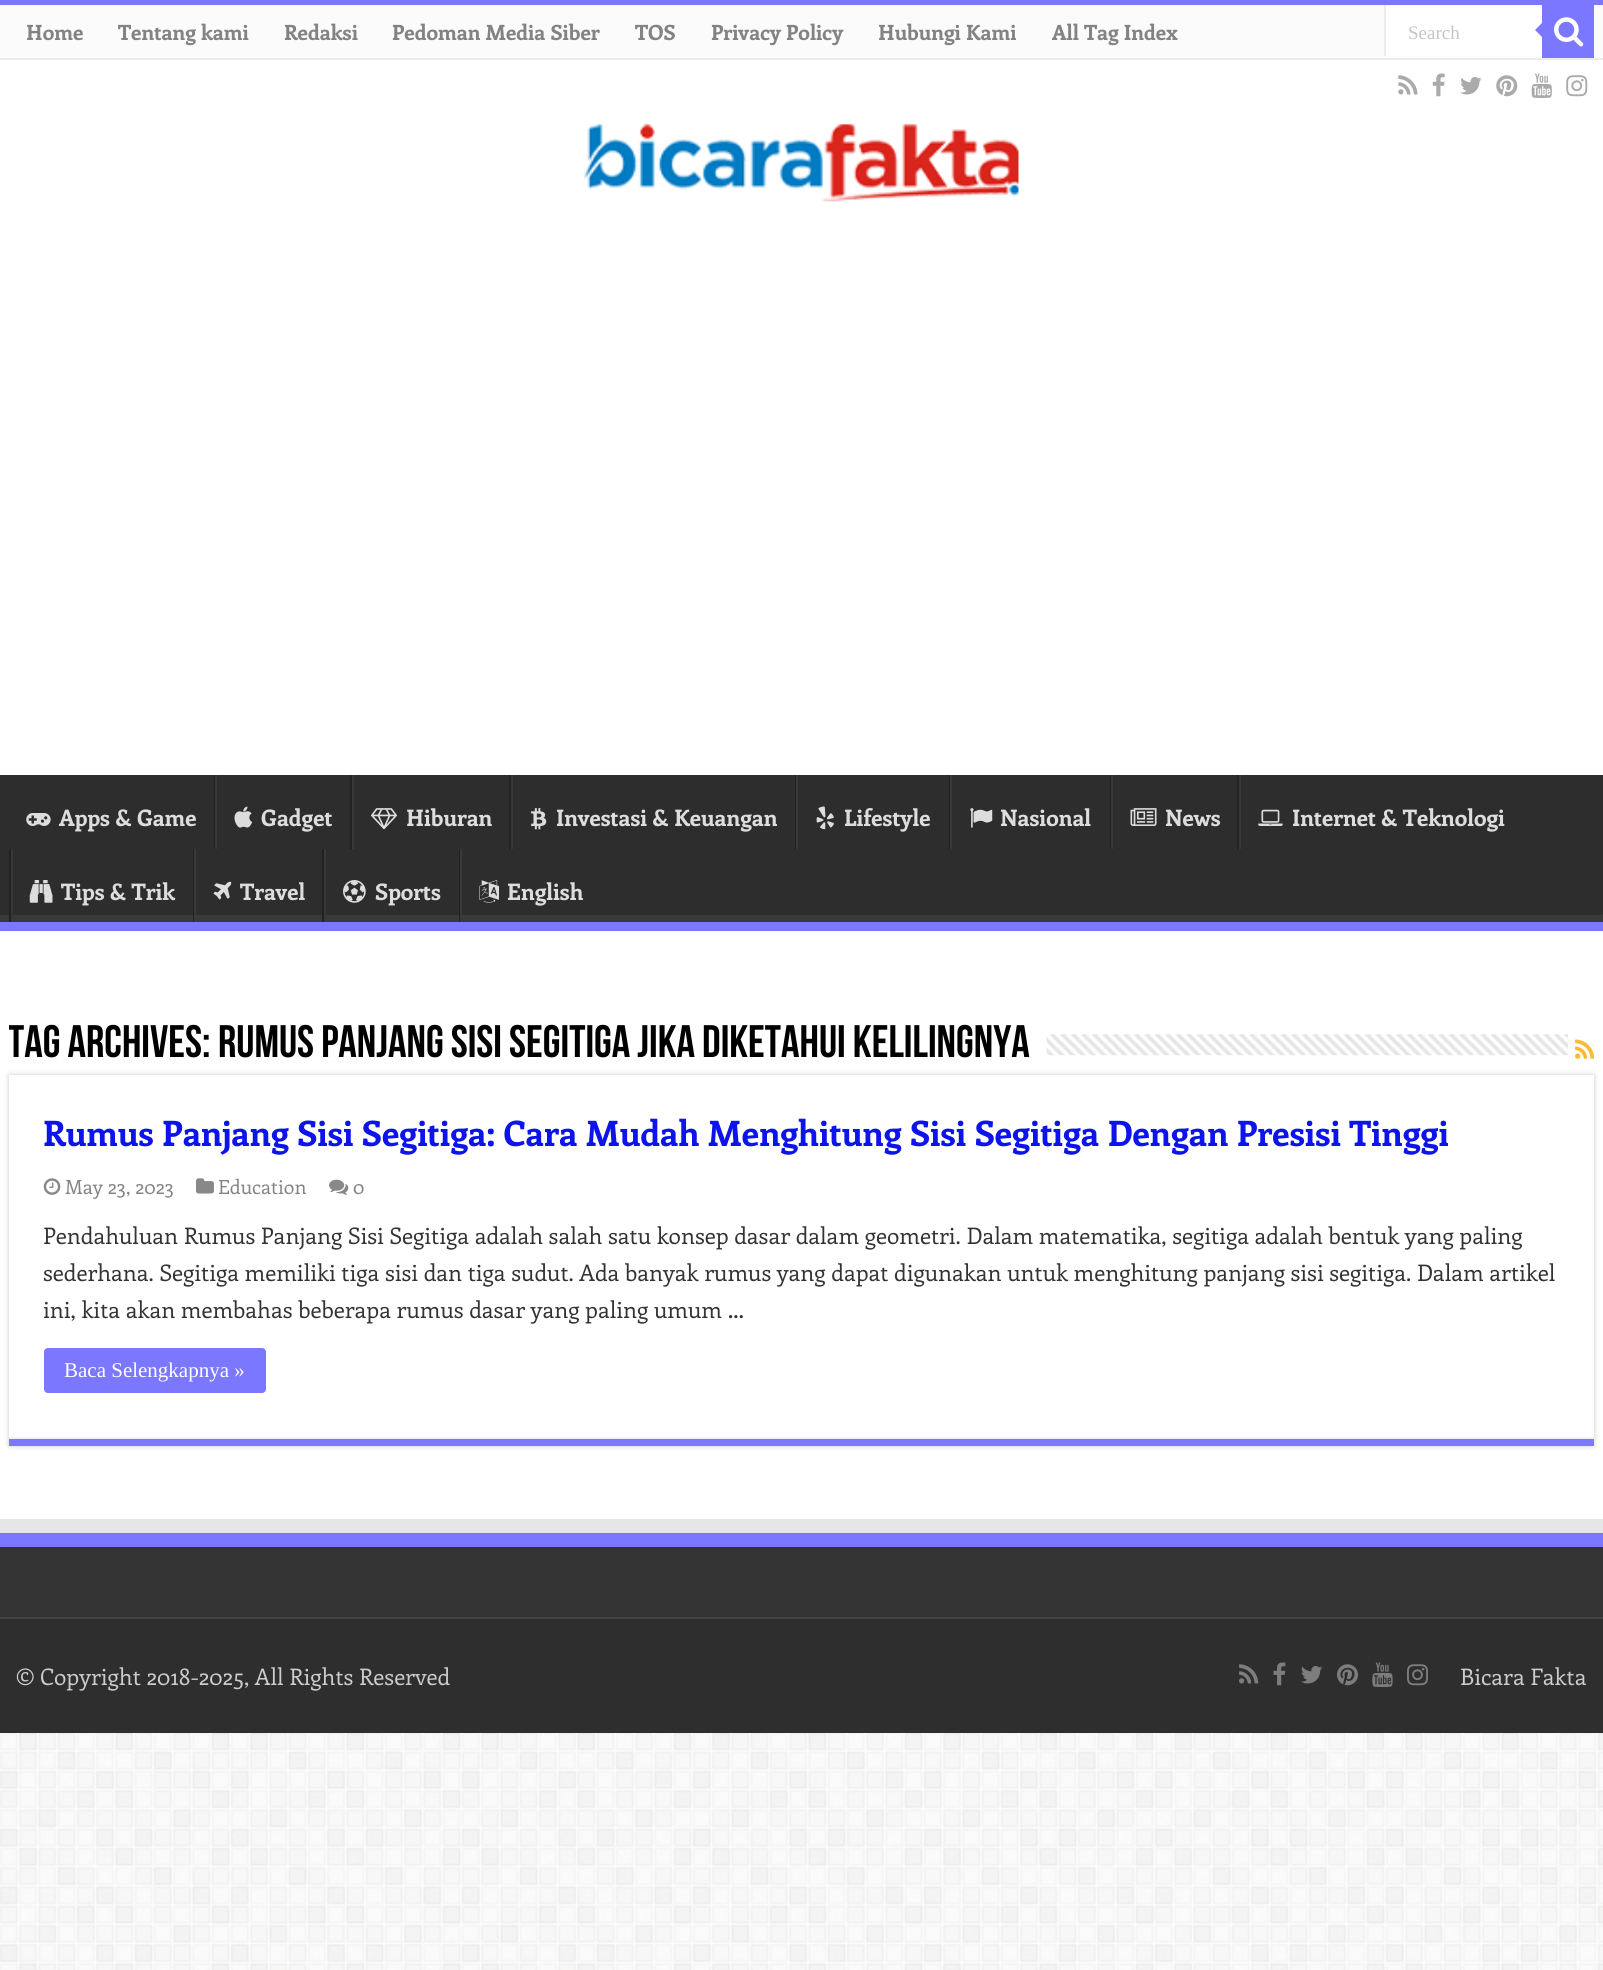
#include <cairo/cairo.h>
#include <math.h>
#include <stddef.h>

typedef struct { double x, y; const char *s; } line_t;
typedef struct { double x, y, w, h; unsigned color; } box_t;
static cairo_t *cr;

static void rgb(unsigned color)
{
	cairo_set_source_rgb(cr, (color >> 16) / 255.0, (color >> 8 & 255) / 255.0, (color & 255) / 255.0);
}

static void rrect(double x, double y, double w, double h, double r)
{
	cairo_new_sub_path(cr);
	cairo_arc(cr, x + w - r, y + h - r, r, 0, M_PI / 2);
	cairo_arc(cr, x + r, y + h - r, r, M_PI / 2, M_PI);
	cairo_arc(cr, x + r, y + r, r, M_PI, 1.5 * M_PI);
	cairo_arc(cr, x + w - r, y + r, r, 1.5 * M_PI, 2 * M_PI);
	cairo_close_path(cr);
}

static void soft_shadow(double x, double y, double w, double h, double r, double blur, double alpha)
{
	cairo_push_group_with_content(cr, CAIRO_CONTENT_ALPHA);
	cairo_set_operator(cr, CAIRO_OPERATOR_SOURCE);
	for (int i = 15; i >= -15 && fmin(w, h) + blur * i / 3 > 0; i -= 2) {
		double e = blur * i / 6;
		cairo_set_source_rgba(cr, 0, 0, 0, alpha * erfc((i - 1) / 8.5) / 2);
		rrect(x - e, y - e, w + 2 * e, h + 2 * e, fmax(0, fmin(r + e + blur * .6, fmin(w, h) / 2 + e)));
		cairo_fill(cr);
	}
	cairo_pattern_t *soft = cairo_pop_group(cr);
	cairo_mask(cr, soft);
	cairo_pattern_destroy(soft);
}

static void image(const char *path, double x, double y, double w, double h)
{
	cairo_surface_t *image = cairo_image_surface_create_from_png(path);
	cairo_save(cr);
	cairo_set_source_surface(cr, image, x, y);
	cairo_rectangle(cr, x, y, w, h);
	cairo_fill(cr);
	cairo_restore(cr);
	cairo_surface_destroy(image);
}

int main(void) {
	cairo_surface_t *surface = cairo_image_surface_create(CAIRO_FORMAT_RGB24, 1603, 1970);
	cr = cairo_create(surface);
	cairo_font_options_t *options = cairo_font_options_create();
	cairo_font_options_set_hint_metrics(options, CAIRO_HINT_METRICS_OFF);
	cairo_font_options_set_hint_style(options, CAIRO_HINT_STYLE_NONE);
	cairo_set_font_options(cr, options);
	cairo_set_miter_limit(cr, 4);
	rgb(0xffffff);
	cairo_paint(cr);
	image("img/1.png", 0, 1733, 1603, 237);
	{
		static const box_t items[] = {
			{0, 0, 1603, 5, 0x7b77ff},
			{0, 5, 1603, 53, 0xfbfbfb},
			{0, 58, 1603, 2, 0xececec},
			{1386, 5, 156, 51, 0xffffff},
			{1384, 5, 2, 51, 0xececec},
			{1542, 5, 52, 53, 0x7b77ff},
		};
		for (size_t i = 0; i < sizeof items / sizeof *items; i++) {
			rgb(items[i].color);
			cairo_rectangle(cr, items[i].x, items[i].y, items[i].w, items[i].h);
			cairo_fill(cr);
		}
	}
	image("img/2.png", 1554, 17, 30, 30);
	cairo_new_path(cr);
	cairo_move_to(cr, 1542, 23);
	cairo_line_to(cr, 1542, 37);
	cairo_line_to(cr, 1535, 30);
	cairo_close_path(cr);
	cairo_fill(cr);
	image("img/3.png", 1398, 75, 20, 20);
	image("img/4.png", 1432, 73, 13, 24);
	image("img/5.png", 1460, 77, 22, 18);
	image("img/6.png", 1496, 75, 22, 22);
	image("img/7.png", 1531, 73, 21, 25);
	image("img/8.png", 1566, 75, 22, 22);
	image("img/9.png", 584, 123, 435, 79);
	rgb(0x2d2d2d);
	cairo_rectangle(cr, 0, 775, 1603, 140);
	cairo_fill(cr);
	cairo_save(cr);
	cairo_rectangle(cr, 0, 775, 1603, 147);
	cairo_clip(cr);
	rgb(0x393939);
	cairo_set_fill_rule(cr, CAIRO_FILL_RULE_EVEN_ODD);
	cairo_new_path(cr);
	cairo_move_to(cr, -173, 602);
	cairo_line_to(cr, 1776, 602);
	cairo_line_to(cr, 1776, 1096);
	cairo_line_to(cr, -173, 1096);
	cairo_close_path(cr);
	cairo_move_to(cr, -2, 765);
	cairo_line_to(cr, 1601, 765);
	cairo_curve_to(cr, 1602, 765, 1603, 766, 1603, 766);
	cairo_line_to(cr, 1603, 914);
	cairo_curve_to(cr, 1603, 914, 1602, 915, 1601, 915);
	cairo_line_to(cr, -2, 915);
	cairo_curve_to(cr, -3, 915, -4, 914, -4, 914);
	cairo_line_to(cr, -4, 766);
	cairo_curve_to(cr, -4, 766, -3, 765, -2, 765);
	cairo_close_path(cr);
	cairo_fill(cr);
	cairo_restore(cr);
	rgb(0x7b77ff);
	cairo_rectangle(cr, 0, 922, 1603, 9);
	cairo_fill(cr);
	image("img/10.png", 26, 813, 25, 13);
	rgb(0x222222);
	cairo_rectangle(cr, 214, 775, 1, 74);
	cairo_fill(cr);
	rgb(0x383838);
	cairo_rectangle(cr, 215, 775, 2, 74);
	cairo_fill(cr);
	image("img/11.png", 234, 806, 19, 22);
	rgb(0x222222);
	cairo_rectangle(cr, 350, 775, 2, 74);
	cairo_fill(cr);
	rgb(0x383838);
	cairo_rectangle(cr, 352, 775, 2, 74);
	cairo_fill(cr);
	image("img/12.png", 371, 808, 26, 22);
	rgb(0x222222);
	cairo_rectangle(cr, 509, 775, 2, 74);
	cairo_fill(cr);
	rgb(0x383838);
	cairo_rectangle(cr, 511, 775, 2, 74);
	cairo_fill(cr);
	image("img/13.png", 530, 808, 17, 22);
	rgb(0x222222);
	cairo_rectangle(cr, 795, 775, 1, 74);
	cairo_fill(cr);
	rgb(0x383838);
	cairo_rectangle(cr, 796, 775, 2, 74);
	cairo_fill(cr);
	image("img/14.png", 816, 806, 18, 24);
	rgb(0x222222);
	cairo_rectangle(cr, 949, 775, 1, 74);
	cairo_fill(cr);
	rgb(0x383838);
	cairo_rectangle(cr, 950, 775, 2, 74);
	cairo_fill(cr);
	image("img/15.png", 970, 808, 23, 20);
	rgb(0x222222);
	cairo_rectangle(cr, 1110, 775, 1, 74);
	cairo_fill(cr);
	rgb(0x383838);
	cairo_rectangle(cr, 1111, 775, 2, 74);
	cairo_fill(cr);
	image("img/16.png", 1130, 808, 27, 18);
	rgb(0x222222);
	cairo_rectangle(cr, 1237, 775, 2, 74);
	cairo_fill(cr);
	rgb(0x383838);
	cairo_rectangle(cr, 1239, 775, 2, 74);
	cairo_fill(cr);
	image("img/17.png", 1258, 809, 25, 17);
	rgb(0x222222);
	cairo_rectangle(cr, 9, 849, 2, 73);
	cairo_fill(cr);
	rgb(0x383838);
	cairo_rectangle(cr, 11, 849, 2, 73);
	cairo_fill(cr);
	image("img/18.png", 29, 880, 24, 23);
	rgb(0x222222);
	cairo_rectangle(cr, 193, 849, 1, 73);
	cairo_fill(cr);
	rgb(0x383838);
	cairo_rectangle(cr, 194, 849, 2, 73);
	cairo_fill(cr);
	image("img/19.png", 213, 881, 19, 19);
	rgb(0x222222);
	cairo_rectangle(cr, 322, 849, 2, 73);
	cairo_fill(cr);
	rgb(0x383838);
	cairo_rectangle(cr, 324, 849, 2, 73);
	cairo_fill(cr);
	image("img/20.png", 343, 880, 23, 23);
	rgb(0x222222);
	cairo_rectangle(cr, 459, 849, 1, 73);
	cairo_fill(cr);
	rgb(0x383838);
	cairo_rectangle(cr, 460, 849, 2, 73);
	cairo_fill(cr);
	image("img/21.png", 479, 880, 20, 23);
	image("img/22.png", 1046, 1034, 522, 22);
	image("img/23.png", 1575, 1039, 19, 20);
	rgb(0xcacaca);
	soft_shadow(9, 1075, 1585, 371, 0, 2.5, 1);
	{
		static const box_t items[] = {
			{9, 1075, 1585, 362, 0xffffff},
			{9, 1439, 1585, 7, 0x7b77ff},
			{9, 1437, 1585, 2, 0xf2f2f2},
		};
		for (size_t i = 0; i < sizeof items / sizeof *items; i++) {
			rgb(items[i].color);
			cairo_rectangle(cr, items[i].x, items[i].y, items[i].w, items[i].h);
			cairo_fill(cr);
		}
	}
	image("img/24.png", 43, 1178, 18, 17);
	image("img/25.png", 196, 1178, 18, 16);
	image("img/26.png", 329, 1179, 20, 16);
	rgb(0x7b77ff);
	rrect(44, 1348, 222, 45, 4);
	cairo_fill(cr);
	{
		static const box_t items[] = {
			{0, 1519, 1603, 14, 0xe6e6e6},
			{0, 1547, 1603, 70, 0x333333},
			{0, 1533, 1603, 14, 0x7b77ff},
			{0, 1619, 1603, 114, 0x2e2e2e},
			{0, 1617, 1603, 2, 0x444444},
		};
		for (size_t i = 0; i < sizeof items / sizeof *items; i++) {
			rgb(items[i].color);
			cairo_rectangle(cr, items[i].x, items[i].y, items[i].w, items[i].h);
			cairo_fill(cr);
		}
	}
	image("img/27.png", 1239, 1664, 20, 20);
	image("img/28.png", 1273, 1662, 13, 24);
	image("img/29.png", 1301, 1666, 22, 18);
	image("img/30.png", 1337, 1664, 21, 22);
	image("img/31.png", 1372, 1662, 21, 25);
	image("img/32.png", 1407, 1664, 21, 22);
	cairo_select_font_face(cr, "Enriqueta", CAIRO_FONT_SLANT_NORMAL, CAIRO_FONT_WEIGHT_BOLD);
	cairo_set_font_size(cr, 21);
	rgb(0x838383);
	{
		static const line_t items[] = {
			{26, 40, "Home"},
			{118, 40, "Tentang kami"},
			{284, 40, "Redaksi"},
			{392, 40, "Pedoman Media Siber"},
			{635, 40, "TOS"},
			{711, 40, "Privacy Policy"},
			{878, 40, "Hubungi Kami"},
			{1052, 40, "All Tag Index"},
		};
		for (size_t i = 0; i < sizeof items / sizeof *items; i++) {
			cairo_move_to(cr, items[i].x, items[i].y);
			cairo_show_text(cr, items[i].s);
		}
	}
	cairo_select_font_face(cr, "Liberation Serif", CAIRO_FONT_SLANT_NORMAL, CAIRO_FONT_WEIGHT_NORMAL);
	cairo_set_font_size(cr, 19);
	rgb(0xc5c5c5);
	cairo_move_to(cr, 1408, 39);
	cairo_show_text(cr, "Search");
	cairo_select_font_face(cr, "Enriqueta", CAIRO_FONT_SLANT_NORMAL, CAIRO_FONT_WEIGHT_BOLD);
	cairo_set_font_size(cr, 22.75);
	rgb(0xdddddd);
	{
		static const line_t items[] = {
			{59, 826, "Apps & Game"},
			{261, 826, "Gadget"},
			{406, 826, "Hiburan"},
			{556, 826, "Investasi & Keuangan"},
			{844, 826, "Lifestyle"},
			{1000, 826, "Nasional"},
			{1165, 826, "News"},
			{1292, 826, "Internet & Teknologi"},
			{61, 900, "Tips & Trik"},
			{240, 900, "Travel"},
			{375, 900, "Sports"},
			{507, 900, "English"},
		};
		for (size_t i = 0; i < sizeof items / sizeof *items; i++) {
			cairo_move_to(cr, items[i].x, items[i].y);
			cairo_show_text(cr, items[i].s);
		}
	}
	cairo_save(cr);
	cairo_rectangle(cr, 9, 1017, 1585, 58);
	cairo_clip(cr);
	cairo_select_font_face(cr, "Bebas Neue", CAIRO_FONT_SLANT_NORMAL, CAIRO_FONT_WEIGHT_BOLD);
	cairo_set_font_size(cr, 45.5);
	rgb(0x000000);
	cairo_move_to(cr, 8, 1057);
	cairo_show_text(cr, "Tag Archives:");
	cairo_restore(cr);
	cairo_select_font_face(cr, "Bebas Neue", CAIRO_FONT_SLANT_NORMAL, CAIRO_FONT_WEIGHT_BOLD);
	cairo_set_font_size(cr, 45.5);
	rgb(0x000000);
	cairo_move_to(cr, 218, 1057);
	cairo_show_text(cr, "rumus panjang sisi segitiga jika diketahui kelilingnya");
	cairo_select_font_face(cr, "Enriqueta", CAIRO_FONT_SLANT_NORMAL, CAIRO_FONT_WEIGHT_BOLD);
	cairo_set_font_size(cr, 35);
	rgb(0x0c13eb);
	cairo_move_to(cr, 43, 1146);
	cairo_show_text(cr, "Rumus Panjang Sisi Segitiga: Cara Mudah Menghitung Sisi Segitiga Dengan Presisi Tinggi");
	cairo_select_font_face(cr, "Enriqueta", CAIRO_FONT_SLANT_NORMAL, CAIRO_FONT_WEIGHT_NORMAL);
	cairo_set_font_size(cr, 19.5);
	rgb(0x838383);
	{
		static const line_t items[] = {
			{65, 1194, "May 23, 2023"},
			{218, 1194, "Education"},
			{353, 1194, "0"},
		};
		for (size_t i = 0; i < sizeof items / sizeof *items; i++) {
			cairo_move_to(cr, items[i].x, items[i].y);
			cairo_show_text(cr, items[i].s);
		}
	}
	cairo_set_font_size(cr, 22.75);
	rgb(0x333333);
	{
		static const line_t items[] = {
			{43, 1244, "Pendahuluan Rumus Panjang Sisi Segitiga adalah salah satu konsep dasar dalam geometri. Dalam matematika, segitiga adalah bentuk yang paling"},
			{43, 1281, "sederhana. Segitiga memiliki tiga sisi dan tiga sudut. Ada banyak rumus yang dapat digunakan untuk menghitung panjang sisi segitiga. Dalam artikel"},
			{43, 1318, "ini, kita akan membahas beberapa rumus dasar yang paling umum …"},
		};
		for (size_t i = 0; i < sizeof items / sizeof *items; i++) {
			cairo_move_to(cr, items[i].x, items[i].y);
			cairo_show_text(cr, items[i].s);
		}
	}
	cairo_select_font_face(cr, "Liberation Serif", CAIRO_FONT_SLANT_NORMAL, CAIRO_FONT_WEIGHT_NORMAL);
	cairo_set_font_size(cr, 21);
	rgb(0xffffff);
	cairo_move_to(cr, 64, 1377);
	cairo_show_text(cr, "Baca Selengkapnya »");
	cairo_select_font_face(cr, "Enriqueta", CAIRO_FONT_SLANT_NORMAL, CAIRO_FONT_WEIGHT_NORMAL);
	cairo_set_font_size(cr, 22.75);
	rgb(0xcccccc);
	cairo_move_to(cr, 16, 1685);
	cairo_show_text(cr, "© Copyright 2018-2025, All Rights Reserved");
	cairo_move_to(cr, 1460, 1685);
	cairo_show_text(cr, "Bicara Fakta");
	cairo_surface_write_to_png(surface, "page.png");
	cairo_font_options_destroy(options);
	cairo_destroy(cr);
	cairo_surface_destroy(surface);
	return 0;
}
